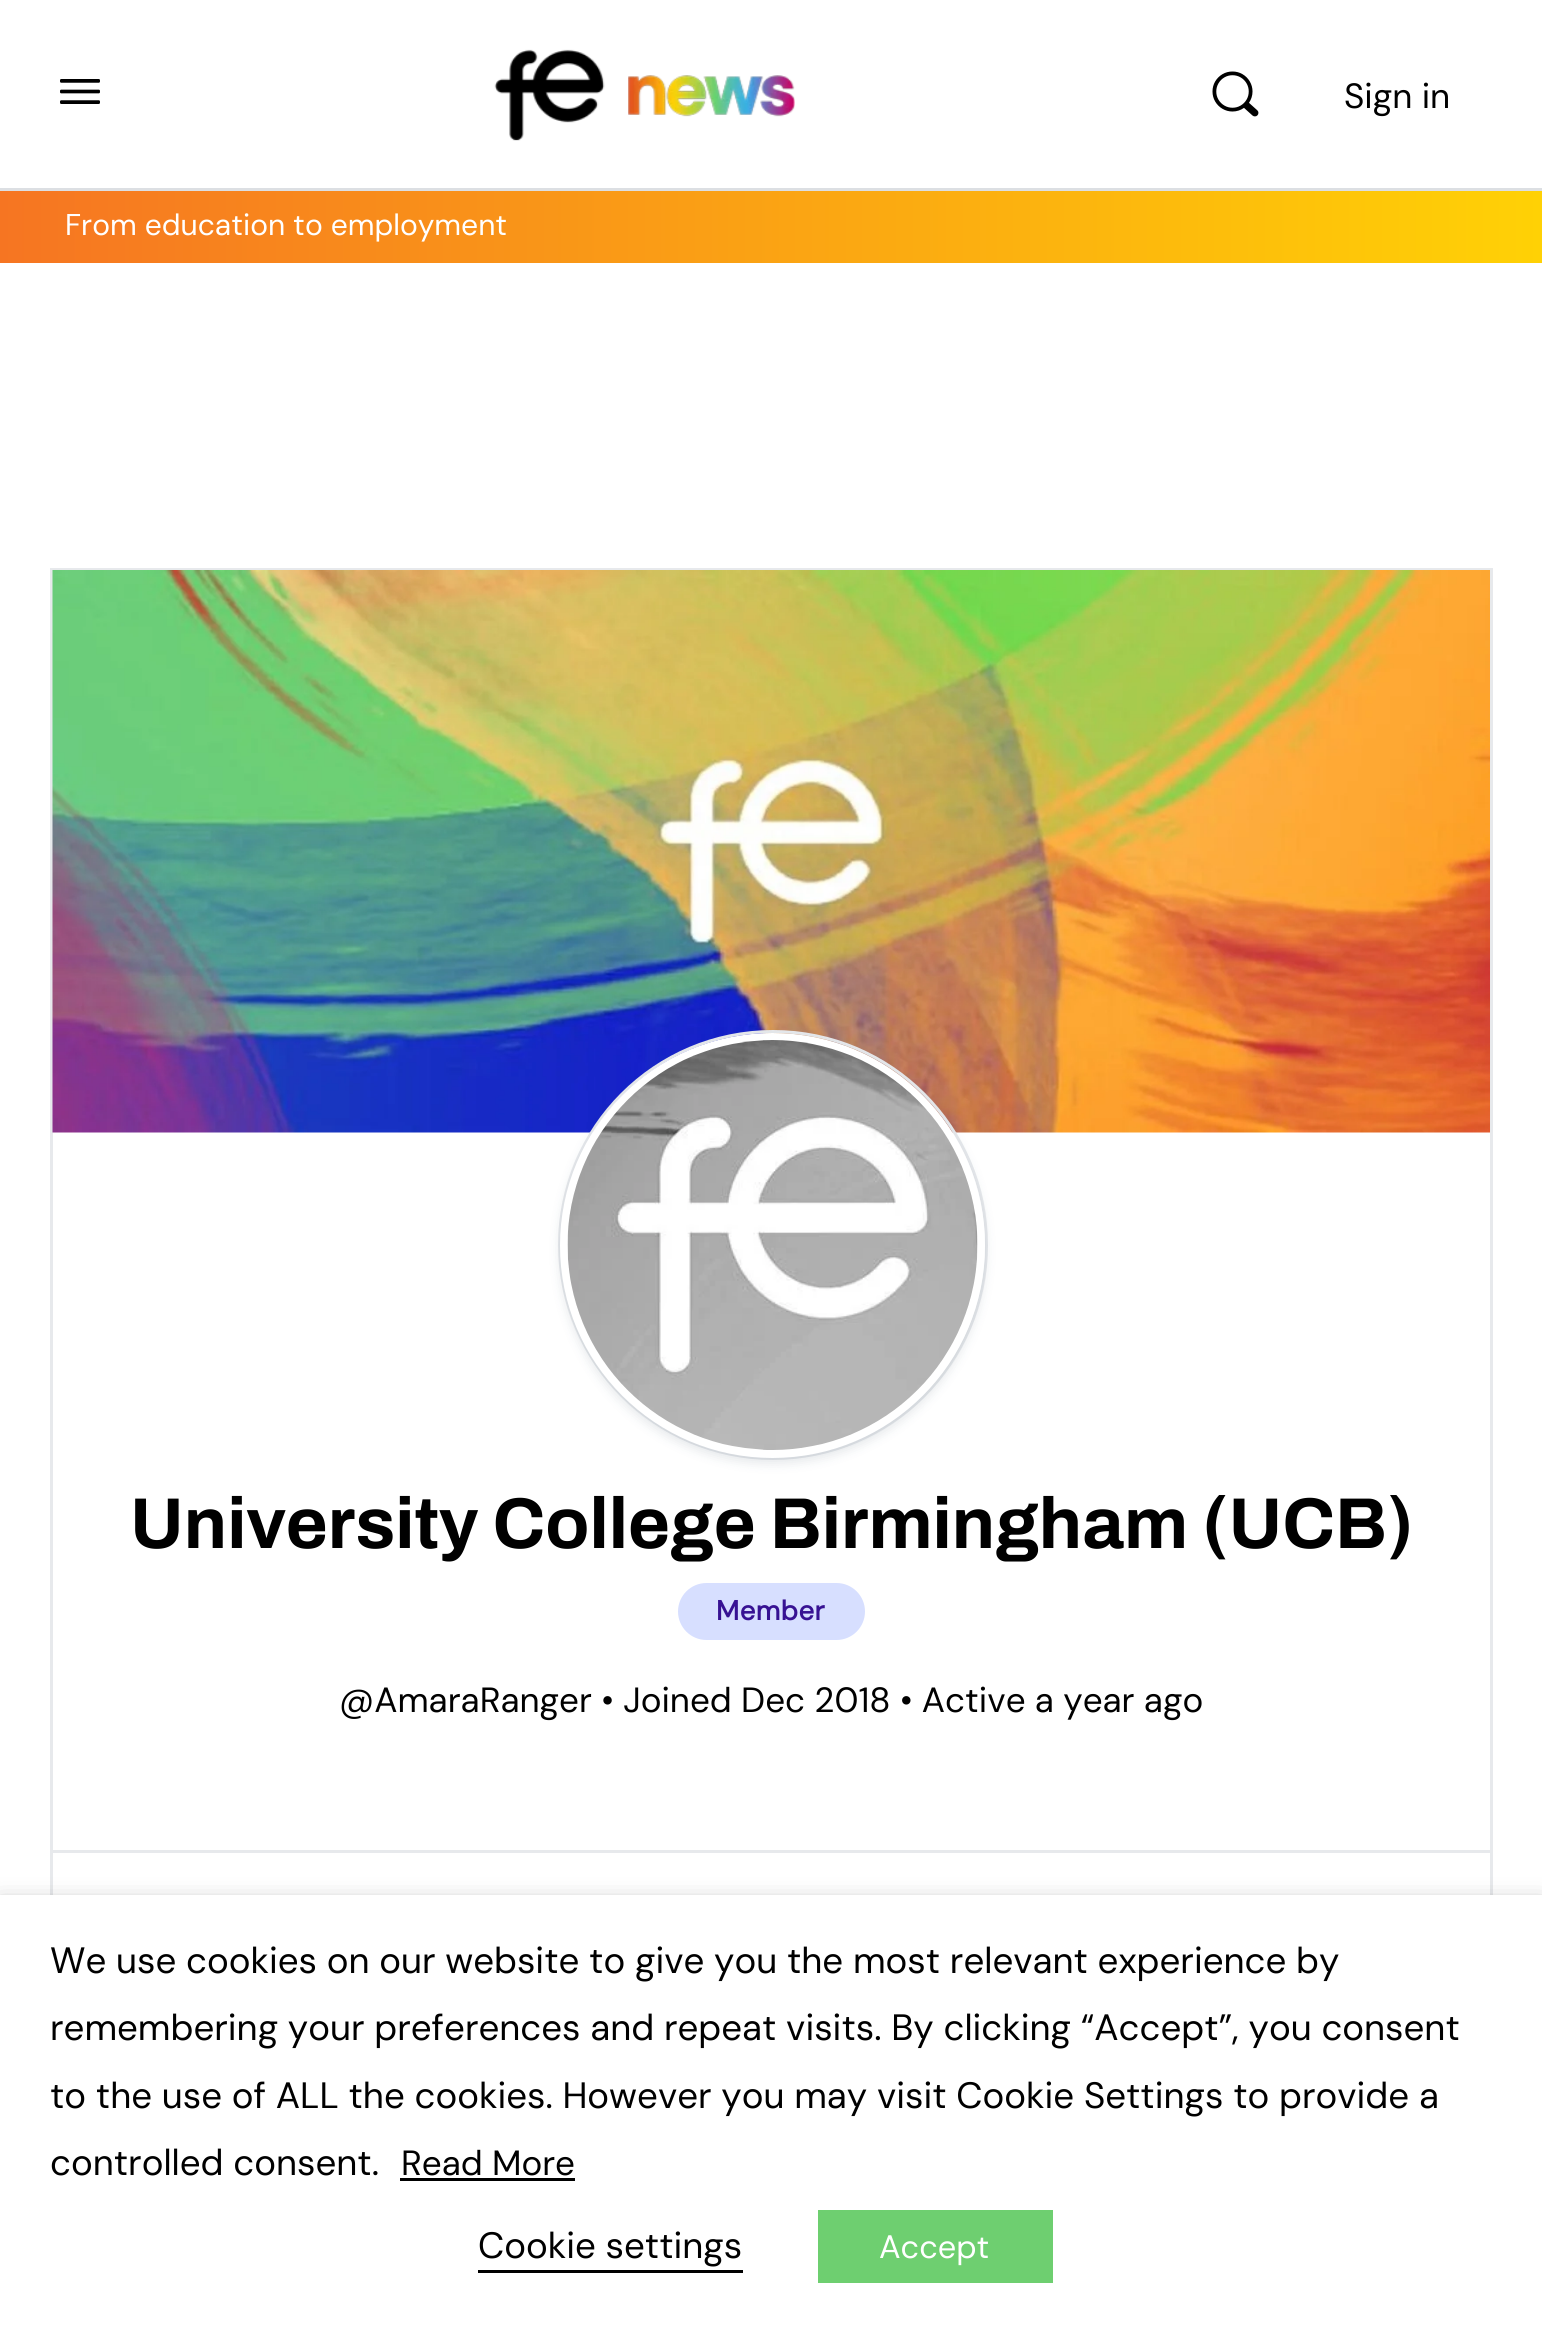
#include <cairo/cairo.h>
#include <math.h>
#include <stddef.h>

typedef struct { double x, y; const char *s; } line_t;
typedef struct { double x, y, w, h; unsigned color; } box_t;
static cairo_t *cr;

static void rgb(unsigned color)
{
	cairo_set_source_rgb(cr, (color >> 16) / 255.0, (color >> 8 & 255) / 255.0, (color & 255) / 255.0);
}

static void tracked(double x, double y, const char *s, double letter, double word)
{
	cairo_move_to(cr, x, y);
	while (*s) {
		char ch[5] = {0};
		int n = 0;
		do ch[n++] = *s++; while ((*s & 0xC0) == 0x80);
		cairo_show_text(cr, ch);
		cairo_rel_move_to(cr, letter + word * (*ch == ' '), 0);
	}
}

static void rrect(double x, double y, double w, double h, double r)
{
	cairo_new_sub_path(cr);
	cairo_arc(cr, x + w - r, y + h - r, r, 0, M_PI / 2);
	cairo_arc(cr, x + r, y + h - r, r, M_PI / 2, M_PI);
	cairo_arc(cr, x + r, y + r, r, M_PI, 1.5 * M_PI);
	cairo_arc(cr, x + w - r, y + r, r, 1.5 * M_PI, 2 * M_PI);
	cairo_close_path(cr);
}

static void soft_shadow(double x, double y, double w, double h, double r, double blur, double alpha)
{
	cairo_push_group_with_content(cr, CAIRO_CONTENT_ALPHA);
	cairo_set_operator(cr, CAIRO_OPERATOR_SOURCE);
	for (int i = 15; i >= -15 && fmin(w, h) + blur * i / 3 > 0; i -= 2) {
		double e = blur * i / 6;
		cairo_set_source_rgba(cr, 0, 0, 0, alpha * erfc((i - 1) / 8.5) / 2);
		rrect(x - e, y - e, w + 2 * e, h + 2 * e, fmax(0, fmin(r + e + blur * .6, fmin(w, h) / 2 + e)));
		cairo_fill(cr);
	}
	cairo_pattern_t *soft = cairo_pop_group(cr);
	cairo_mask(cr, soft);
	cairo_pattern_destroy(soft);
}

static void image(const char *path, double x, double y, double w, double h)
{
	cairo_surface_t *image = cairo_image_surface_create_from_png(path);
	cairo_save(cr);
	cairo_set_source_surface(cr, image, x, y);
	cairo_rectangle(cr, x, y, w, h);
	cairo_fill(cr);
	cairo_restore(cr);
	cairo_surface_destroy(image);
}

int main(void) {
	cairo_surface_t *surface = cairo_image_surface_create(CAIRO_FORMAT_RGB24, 1542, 2326);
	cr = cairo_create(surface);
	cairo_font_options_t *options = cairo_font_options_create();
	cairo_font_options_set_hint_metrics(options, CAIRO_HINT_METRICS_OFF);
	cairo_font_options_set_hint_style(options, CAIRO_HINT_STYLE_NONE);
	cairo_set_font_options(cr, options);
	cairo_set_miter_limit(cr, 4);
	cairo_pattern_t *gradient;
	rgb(0xffffff);
	cairo_paint(cr);
	rgb(0xdcdfe3);
	cairo_rectangle(cr, 0, 188, 1542, 3);
	cairo_fill(cr);
	image("img/1.png", 60, 79, 40, 25);
	image("img/2.png", 494, 49, 301, 92);
	image("img/3.png", 1212, 71, 47, 46);
	gradient = cairo_pattern_create_linear(0, 225, 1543, 225);
	cairo_pattern_add_color_stop_rgba(gradient, 0, 0.965, 0.459, 0.133, 1);
	cairo_pattern_add_color_stop_rgba(gradient, 1, 1, 0.82, 0.02, 1);
	cairo_set_source(cr, gradient);
	cairo_pattern_destroy(gradient);
	cairo_rectangle(cr, 0, 191, 1542, 72);
	cairo_fill(cr);
	cairo_rectangle(cr, 51.5, 1851.5, 1440, 127);
	rgb(0xe7e9ec);
	cairo_set_line_width(cr, 3);
	cairo_stroke(cr);
	cairo_rectangle(cr, 51.5, 569.5, 1440, 1282);
	cairo_stroke(cr);
	image("img/4.png", 52, 570, 1438, 563);
	cairo_arc(cr, 773, 1245, 213.5, 0, 2 * M_PI);
	cairo_stroke(cr);
	rgb(0x122b46);
	soft_shadow(560, 1038, 425, 425, 212.5, 6, 0.12);
	rgb(0xffffff);
	cairo_arc(cr, 772.5, 1245.5, 208.5, 0, 2 * M_PI);
	cairo_fill_preserve(cr);
	cairo_set_line_width(cr, 8);
	cairo_stroke(cr);
	image("img/5.png", 567, 1040, 411, 410);
	rgb(0xd7dfff);
	rrect(678, 1583, 187, 57, 28.5);
	cairo_fill(cr);
	rgb(0x000000);
	soft_shadow(0, 1908, 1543, 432, 0, 12.5, 0.5);
	{
		static const box_t items[] = {
			{0, 1895, 1542, 431, 0xffffff},
			{400, 2178, 175, 3, 0x000000},
			{478, 2270, 265, 3, 0x000000},
			{818, 2210, 235, 73, 0x6ecf70},
		};
		for (size_t i = 0; i < sizeof items / sizeof *items; i++) {
			rgb(items[i].color);
			cairo_rectangle(cr, items[i].x, items[i].y, items[i].w, items[i].h);
			cairo_fill(cr);
		}
	}
	cairo_select_font_face(cr, "DM Sans", CAIRO_FONT_SLANT_NORMAL, CAIRO_FONT_WEIGHT_NORMAL);
	cairo_set_font_size(cr, 35);
	rgb(0x000000);
	cairo_move_to(cr, 1344, 108);
	cairo_show_text(cr, "Sign in");
	cairo_set_font_size(cr, 30);
	rgb(0xffffff);
	cairo_move_to(cr, 65, 235);
	cairo_show_text(cr, "From education to employment");
	cairo_select_font_face(cr, "Archivo SemiBold", CAIRO_FONT_SLANT_NORMAL, CAIRO_FONT_WEIGHT_NORMAL);
	cairo_set_font_size(cr, 72);
	rgb(0x000000);
	cairo_move_to(cr, 130, 1548);
	cairo_show_text(cr, "University College Birmingham (UCB)");
	cairo_select_font_face(cr, "DM Sans", CAIRO_FONT_SLANT_NORMAL, CAIRO_FONT_WEIGHT_BOLD);
	cairo_set_font_size(cr, 27.5);
	rgb(0x371293);
	tracked(716, 1620, "Member", 0.5, 0);
	cairo_select_font_face(cr, "DM Sans", CAIRO_FONT_SLANT_NORMAL, CAIRO_FONT_WEIGHT_NORMAL);
	cairo_set_font_size(cr, 35);
	rgb(0x000000);
	cairo_move_to(cr, 339, 1712);
	cairo_show_text(cr, "@AmaraRanger • Joined Dec 2018 • Active a year ago");
	cairo_set_font_size(cr, 36.65);
	{
		static const line_t items[] = {
			{50, 1973, "We use cookies on our website to give you the most relevant experience by"},
			{50, 2040, "remembering your preferences and repeat visits. By clicking “Accept”, you consent"},
			{50, 2108, "to the use of ALL the cookies. However you may visit Cookie Settings to provide a"},
			{50, 2175, "controlled consent."},
		};
		for (size_t i = 0; i < sizeof items / sizeof *items; i++) {
			cairo_move_to(cr, items[i].x, items[i].y);
			cairo_show_text(cr, items[i].s);
		}
	}
	cairo_set_font_size(cr, 35);
	cairo_move_to(cr, 401, 2175);
	cairo_show_text(cr, "Read More");
	cairo_set_font_size(cr, 36.65);
	cairo_move_to(cr, 478, 2258);
	cairo_show_text(cr, "Cookie settings");
	cairo_set_font_size(cr, 32.5);
	rgb(0xffffff);
	cairo_move_to(cr, 879, 2258);
	cairo_show_text(cr, "Accept");
	cairo_surface_write_to_png(surface, "page.png");
	cairo_font_options_destroy(options);
	cairo_destroy(cr);
	cairo_surface_destroy(surface);
	return 0;
}
